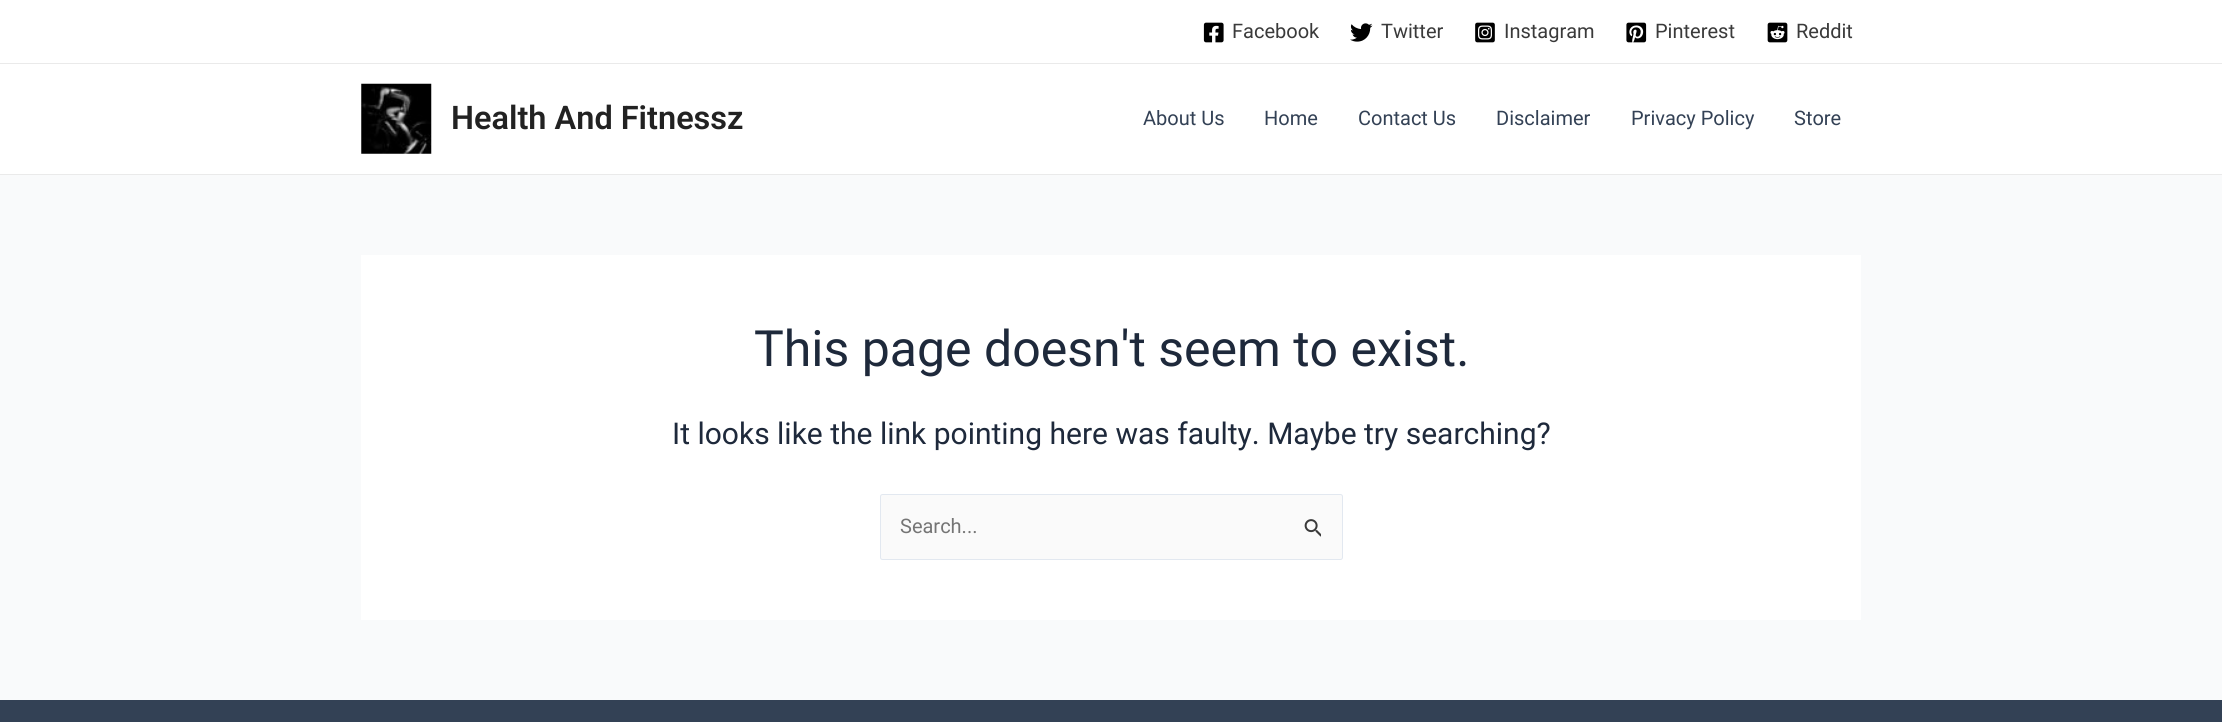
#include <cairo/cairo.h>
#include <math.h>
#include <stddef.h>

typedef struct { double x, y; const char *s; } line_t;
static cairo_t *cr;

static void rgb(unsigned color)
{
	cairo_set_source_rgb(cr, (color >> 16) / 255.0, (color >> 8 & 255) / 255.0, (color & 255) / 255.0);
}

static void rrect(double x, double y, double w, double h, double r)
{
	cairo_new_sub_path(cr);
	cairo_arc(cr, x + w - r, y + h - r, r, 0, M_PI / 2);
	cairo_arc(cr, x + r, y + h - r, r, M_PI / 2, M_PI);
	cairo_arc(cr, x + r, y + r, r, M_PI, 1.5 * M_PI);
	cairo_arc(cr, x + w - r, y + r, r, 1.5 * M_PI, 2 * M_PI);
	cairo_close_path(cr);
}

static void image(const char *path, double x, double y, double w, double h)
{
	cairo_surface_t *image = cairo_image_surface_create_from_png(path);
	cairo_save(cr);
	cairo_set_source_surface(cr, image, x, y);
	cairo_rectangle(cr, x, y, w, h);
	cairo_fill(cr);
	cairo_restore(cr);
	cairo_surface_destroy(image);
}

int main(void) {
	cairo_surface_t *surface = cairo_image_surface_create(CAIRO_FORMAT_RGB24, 2222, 722);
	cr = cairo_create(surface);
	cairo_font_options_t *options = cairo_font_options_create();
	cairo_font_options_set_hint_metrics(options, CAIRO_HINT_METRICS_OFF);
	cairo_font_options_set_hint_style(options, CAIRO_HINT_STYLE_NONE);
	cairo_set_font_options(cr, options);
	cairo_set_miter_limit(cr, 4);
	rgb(0xf9fafb);
	cairo_paint(cr);
	rgb(0xffffff);
	cairo_rectangle(cr, 0, 0, 2222, 63);
	cairo_fill(cr);
	rgb(0xeaeaea);
	cairo_rectangle(cr, 0, 63, 2222, 1);
	cairo_fill(cr);
	image("img/1.png", 1203, 22, 21, 21);
	image("img/2.png", 1350, 23, 23, 19);
	image("img/3.png", 1475, 22, 20, 21);
	image("img/4.png", 1626, 22, 21, 21);
	image("img/5.png", 1767, 22, 21, 21);
	rgb(0xffffff);
	cairo_rectangle(cr, 0, 64, 2222, 110);
	cairo_fill(cr);
	rgb(0xeaeaea);
	cairo_rectangle(cr, 0, 174, 2222, 1);
	cairo_fill(cr);
	image("img/6.png", 361, 83, 71, 71);
	rgb(0xffffff);
	cairo_rectangle(cr, 361, 255, 1500, 365);
	cairo_fill(cr);
	rgb(0xfafafa);
	rrect(880.5, 494.5, 462, 65, 2);
	cairo_fill_preserve(cr);
	rgb(0xe2e8f0);
	cairo_set_line_width(cr, 1);
	cairo_stroke(cr);
	image("img/7.png", 1304, 519, 17, 18);
	rgb(0x334155);
	cairo_rectangle(cr, 0, 700, 2222, 22);
	cairo_fill(cr);
	cairo_select_font_face(cr, "Roboto", CAIRO_FONT_SLANT_NORMAL, CAIRO_FONT_WEIGHT_NORMAL);
	cairo_set_font_size(cr, 20);
	rgb(0x3a3a3a);
	{
		static const line_t items[] = {
			{1232, 38, "Facebook"},
			{1381, 38, "Twitter"},
			{1504, 38, "Instagram"},
			{1655, 38, "Pinterest"},
			{1796, 38, "Reddit"},
		};
		for (size_t i = 0; i < sizeof items / sizeof *items; i++) {
			cairo_move_to(cr, items[i].x, items[i].y);
			cairo_show_text(cr, items[i].s);
		}
	}
	cairo_select_font_face(cr, "Roboto SemiBold", CAIRO_FONT_SLANT_NORMAL, CAIRO_FONT_WEIGHT_NORMAL);
	cairo_set_font_size(cr, 32.5);
	rgb(0x222222);
	cairo_move_to(cr, 451, 129);
	cairo_show_text(cr, "Health And Fitnessz");
	cairo_select_font_face(cr, "Roboto", CAIRO_FONT_SLANT_NORMAL, CAIRO_FONT_WEIGHT_NORMAL);
	cairo_set_font_size(cr, 20);
	rgb(0x334155);
	{
		static const line_t items[] = {
			{1143, 125, "About Us"},
			{1264, 125, "Home"},
			{1358, 125, "Contact Us"},
			{1496, 125, "Disclaimer"},
			{1631, 125, "Privacy Policy"},
			{1794, 125, "Store"},
		};
		for (size_t i = 0; i < sizeof items / sizeof *items; i++) {
			cairo_move_to(cr, items[i].x, items[i].y);
			cairo_show_text(cr, items[i].s);
		}
	}
	cairo_set_font_size(cr, 50);
	rgb(0x1e293b);
	cairo_move_to(cr, 754, 366);
	cairo_show_text(cr, "This page doesn't seem to exist.");
	cairo_set_font_size(cr, 30);
	cairo_move_to(cr, 672, 444);
	cairo_show_text(cr, "It looks like the link pointing here was faulty. Maybe try searching?");
	cairo_set_font_size(cr, 20);
	rgb(0x757575);
	cairo_move_to(cr, 900, 533);
	cairo_show_text(cr, "Search...");
	cairo_surface_write_to_png(surface, "page.png");
	cairo_font_options_destroy(options);
	cairo_destroy(cr);
	cairo_surface_destroy(surface);
	return 0;
}
